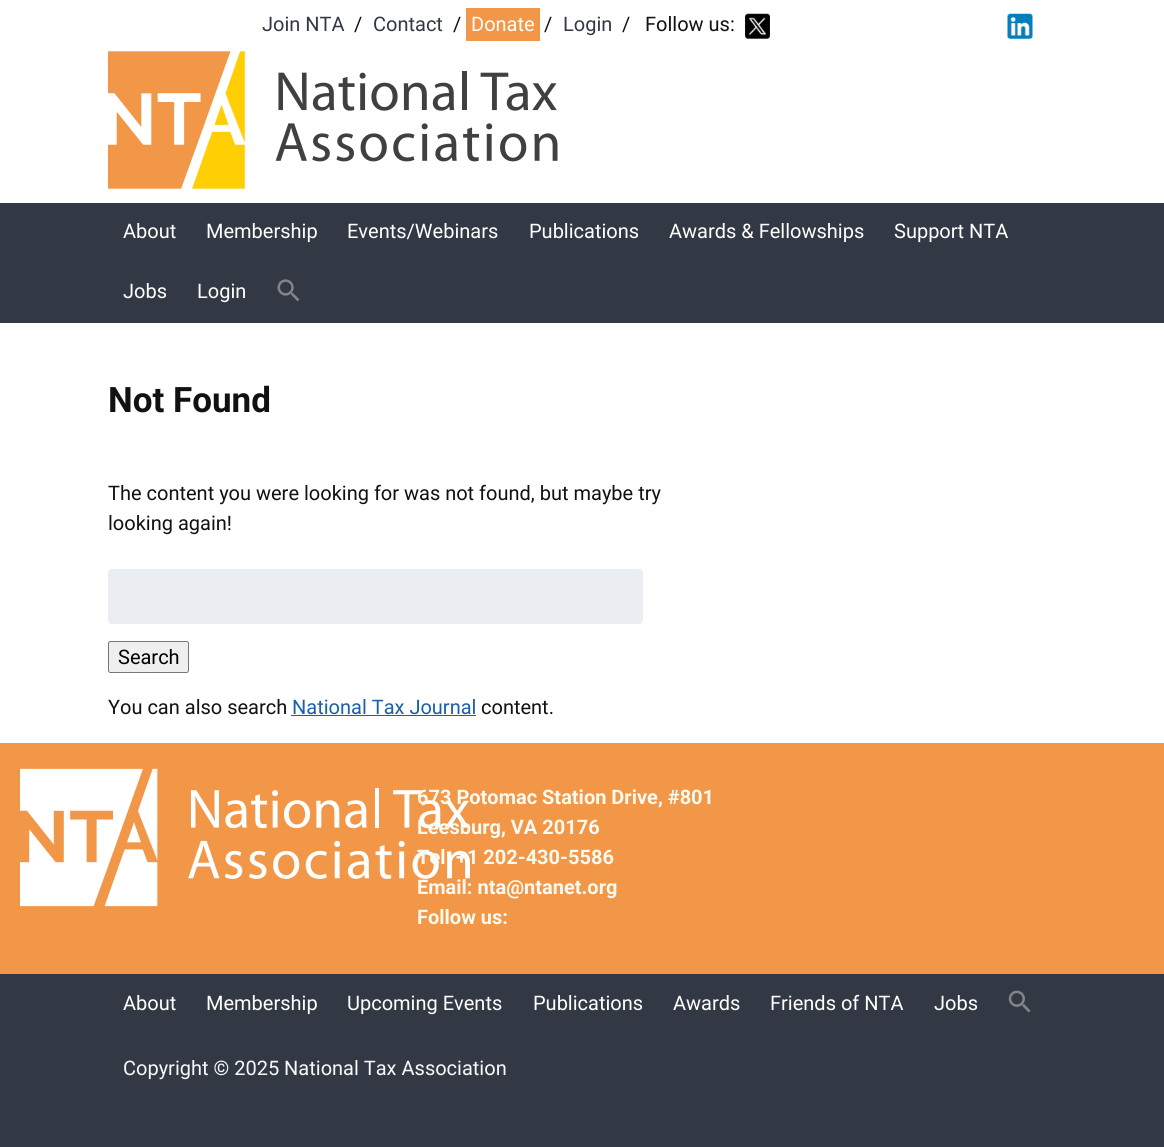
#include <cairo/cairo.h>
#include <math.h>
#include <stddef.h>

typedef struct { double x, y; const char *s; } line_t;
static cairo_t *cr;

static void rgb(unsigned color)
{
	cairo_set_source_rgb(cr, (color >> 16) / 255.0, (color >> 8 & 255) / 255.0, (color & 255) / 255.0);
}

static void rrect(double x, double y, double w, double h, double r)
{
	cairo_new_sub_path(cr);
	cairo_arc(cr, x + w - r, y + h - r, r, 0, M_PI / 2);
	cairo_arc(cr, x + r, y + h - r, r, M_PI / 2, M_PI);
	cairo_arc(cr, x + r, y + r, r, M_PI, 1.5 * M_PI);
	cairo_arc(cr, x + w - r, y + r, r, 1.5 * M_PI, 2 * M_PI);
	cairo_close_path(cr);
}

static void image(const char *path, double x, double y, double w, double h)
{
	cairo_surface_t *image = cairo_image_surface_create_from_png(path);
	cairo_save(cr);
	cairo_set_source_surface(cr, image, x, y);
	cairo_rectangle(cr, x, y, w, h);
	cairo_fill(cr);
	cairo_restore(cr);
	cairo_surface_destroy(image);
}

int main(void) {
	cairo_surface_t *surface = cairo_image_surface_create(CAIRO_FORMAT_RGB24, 1164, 1147);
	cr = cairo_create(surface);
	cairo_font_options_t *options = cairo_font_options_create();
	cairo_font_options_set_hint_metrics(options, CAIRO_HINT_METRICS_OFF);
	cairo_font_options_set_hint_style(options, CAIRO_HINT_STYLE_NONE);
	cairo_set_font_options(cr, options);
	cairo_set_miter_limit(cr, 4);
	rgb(0xffffff);
	cairo_paint(cr);
	rgb(0xf29647);
	cairo_rectangle(cr, 466, 8, 74, 33);
	cairo_fill(cr);
	image("img/1.png", 745, 13, 25, 26);
	image("img/2.png", 1007, 13, 26, 26);
	image("img/3.png", 108, 51, 450, 138);
	rgb(0x323944);
	cairo_rectangle(cr, 0, 203, 1164, 120);
	cairo_fill(cr);
	image("img/4.png", 277, 279, 23, 23);
	rgb(0xeaedf2);
	rrect(108, 569, 535, 55, 4);
	cairo_fill(cr);
	rgb(0xefefef);
	rrect(108.5, 641.5, 80, 31, 2);
	cairo_fill_preserve(cr);
	rgb(0x767676);
	cairo_set_line_width(cr, 1);
	cairo_stroke(cr);
	rgb(0x1960a9);
	cairo_rectangle(cr, 291, 715, 185, 1);
	cairo_fill(cr);
	rgb(0xf29647);
	cairo_rectangle(cr, 0, 743, 1164, 231);
	cairo_fill(cr);
	image("img/5.png", 20, 768, 450, 139);
	rgb(0x323944);
	cairo_rectangle(cr, 0, 974, 1164, 173);
	cairo_fill(cr);
	image("img/6.png", 1008, 990, 23, 23);
	cairo_select_font_face(cr, "Roboto", CAIRO_FONT_SLANT_NORMAL, CAIRO_FONT_WEIGHT_NORMAL);
	cairo_set_font_size(cr, 20);
	cairo_move_to(cr, 262, 31);
	cairo_show_text(cr, "Join NTA");
	rgb(0x111111);
	cairo_move_to(cr, 354, 31);
	cairo_show_text(cr, "/");
	rgb(0x323944);
	cairo_move_to(cr, 373, 31);
	cairo_show_text(cr, "Contact");
	rgb(0x111111);
	cairo_move_to(cr, 453, 31);
	cairo_show_text(cr, "/");
	rgb(0xffffff);
	cairo_move_to(cr, 471, 31);
	cairo_show_text(cr, "Donate");
	rgb(0x111111);
	cairo_move_to(cr, 544, 31);
	cairo_show_text(cr, "/");
	rgb(0x323944);
	cairo_move_to(cr, 563, 31);
	cairo_show_text(cr, "Login");
	rgb(0x111111);
	cairo_move_to(cr, 622, 31);
	cairo_show_text(cr, "/");
	cairo_move_to(cr, 645, 31);
	cairo_show_text(cr, "Follow us:");
	rgb(0xffffff);
	{
		static const line_t items[] = {
			{123, 238, "About"},
			{206, 238, "Membership"},
			{347, 238, "Events/Webinars"},
			{529, 238, "Publications"},
			{669, 238, "Awards & Fellowships"},
			{894, 238, "Support NTA"},
			{123, 298, "Jobs"},
			{197, 298, "Login"},
		};
		for (size_t i = 0; i < sizeof items / sizeof *items; i++) {
			cairo_move_to(cr, items[i].x, items[i].y);
			cairo_show_text(cr, items[i].s);
		}
	}
	cairo_select_font_face(cr, "Roboto", CAIRO_FONT_SLANT_NORMAL, CAIRO_FONT_WEIGHT_BOLD);
	cairo_set_font_size(cr, 35);
	rgb(0x111111);
	cairo_move_to(cr, 108, 412);
	cairo_show_text(cr, "Not Found");
	cairo_select_font_face(cr, "Roboto", CAIRO_FONT_SLANT_NORMAL, CAIRO_FONT_WEIGHT_NORMAL);
	cairo_set_font_size(cr, 20);
	cairo_move_to(cr, 108, 500);
	cairo_show_text(cr, "The content you were looking for was not found, but maybe try");
	cairo_move_to(cr, 108, 530);
	cairo_show_text(cr, "looking again!");
	rgb(0x000000);
	cairo_move_to(cr, 118, 664);
	cairo_show_text(cr, "Search");
	rgb(0x111111);
	cairo_move_to(cr, 108, 714);
	cairo_show_text(cr, "You can also search");
	rgb(0x1960a9);
	cairo_move_to(cr, 292, 714);
	cairo_show_text(cr, "National Tax Journal");
	rgb(0x111111);
	cairo_move_to(cr, 481, 714);
	cairo_show_text(cr, "content.");
	cairo_select_font_face(cr, "Roboto", CAIRO_FONT_SLANT_NORMAL, CAIRO_FONT_WEIGHT_BOLD);
	rgb(0xfafaf0);
	{
		static const line_t items[] = {
			{417, 804, "673 Potomac Station Drive, #801"},
			{417, 834, "Leesburg, VA 20176"},
			{417, 864, "Tel"},
			{456, 864, "+1 202-430-5586"},
			{417, 894, "Email: nta@ntanet.org"},
			{417, 924, "Follow us:"},
		};
		for (size_t i = 0; i < sizeof items / sizeof *items; i++) {
			cairo_move_to(cr, items[i].x, items[i].y);
			cairo_show_text(cr, items[i].s);
		}
	}
	cairo_select_font_face(cr, "Roboto", CAIRO_FONT_SLANT_NORMAL, CAIRO_FONT_WEIGHT_NORMAL);
	rgb(0xffffff);
	{
		static const line_t items[] = {
			{123, 1010, "About"},
			{206, 1010, "Membership"},
			{347, 1010, "Upcoming Events"},
			{533, 1010, "Publications"},
			{673, 1010, "Awards"},
			{770, 1010, "Friends of NTA"},
			{934, 1010, "Jobs"},
		};
		for (size_t i = 0; i < sizeof items / sizeof *items; i++) {
			cairo_move_to(cr, items[i].x, items[i].y);
			cairo_show_text(cr, items[i].s);
		}
	}
	rgb(0xf8f9fa);
	cairo_move_to(cr, 123, 1075);
	cairo_show_text(cr, "Copyright © 2025 National Tax Association");
	cairo_surface_write_to_png(surface, "page.png");
	cairo_font_options_destroy(options);
	cairo_destroy(cr);
	cairo_surface_destroy(surface);
	return 0;
}
